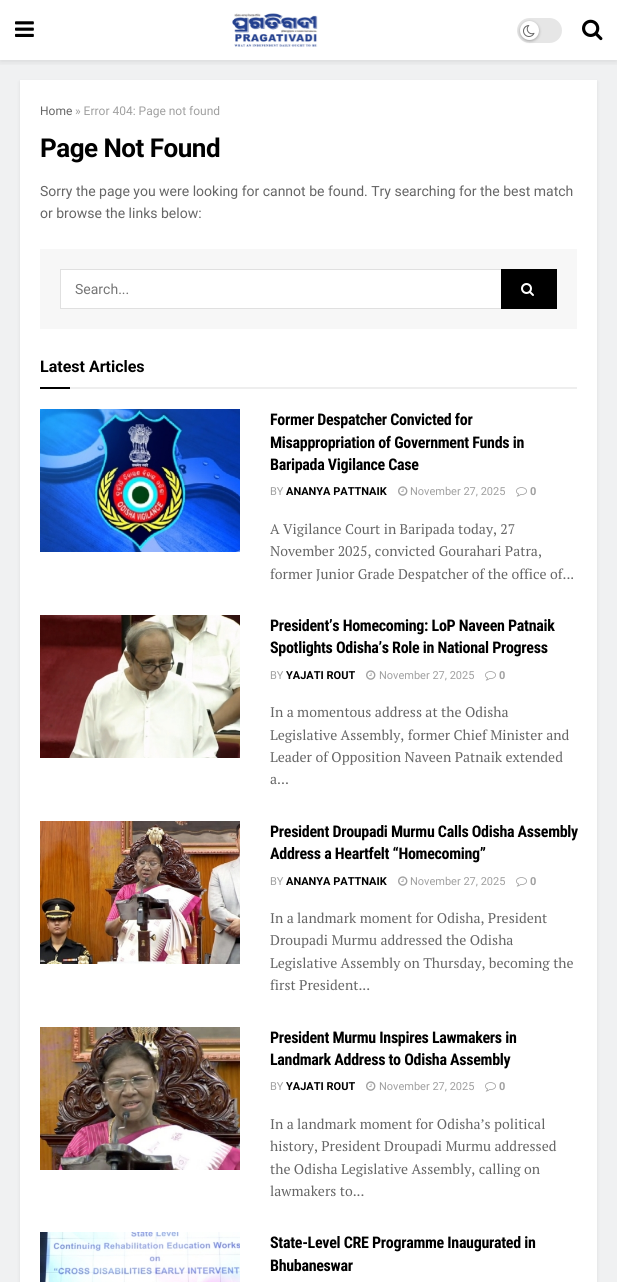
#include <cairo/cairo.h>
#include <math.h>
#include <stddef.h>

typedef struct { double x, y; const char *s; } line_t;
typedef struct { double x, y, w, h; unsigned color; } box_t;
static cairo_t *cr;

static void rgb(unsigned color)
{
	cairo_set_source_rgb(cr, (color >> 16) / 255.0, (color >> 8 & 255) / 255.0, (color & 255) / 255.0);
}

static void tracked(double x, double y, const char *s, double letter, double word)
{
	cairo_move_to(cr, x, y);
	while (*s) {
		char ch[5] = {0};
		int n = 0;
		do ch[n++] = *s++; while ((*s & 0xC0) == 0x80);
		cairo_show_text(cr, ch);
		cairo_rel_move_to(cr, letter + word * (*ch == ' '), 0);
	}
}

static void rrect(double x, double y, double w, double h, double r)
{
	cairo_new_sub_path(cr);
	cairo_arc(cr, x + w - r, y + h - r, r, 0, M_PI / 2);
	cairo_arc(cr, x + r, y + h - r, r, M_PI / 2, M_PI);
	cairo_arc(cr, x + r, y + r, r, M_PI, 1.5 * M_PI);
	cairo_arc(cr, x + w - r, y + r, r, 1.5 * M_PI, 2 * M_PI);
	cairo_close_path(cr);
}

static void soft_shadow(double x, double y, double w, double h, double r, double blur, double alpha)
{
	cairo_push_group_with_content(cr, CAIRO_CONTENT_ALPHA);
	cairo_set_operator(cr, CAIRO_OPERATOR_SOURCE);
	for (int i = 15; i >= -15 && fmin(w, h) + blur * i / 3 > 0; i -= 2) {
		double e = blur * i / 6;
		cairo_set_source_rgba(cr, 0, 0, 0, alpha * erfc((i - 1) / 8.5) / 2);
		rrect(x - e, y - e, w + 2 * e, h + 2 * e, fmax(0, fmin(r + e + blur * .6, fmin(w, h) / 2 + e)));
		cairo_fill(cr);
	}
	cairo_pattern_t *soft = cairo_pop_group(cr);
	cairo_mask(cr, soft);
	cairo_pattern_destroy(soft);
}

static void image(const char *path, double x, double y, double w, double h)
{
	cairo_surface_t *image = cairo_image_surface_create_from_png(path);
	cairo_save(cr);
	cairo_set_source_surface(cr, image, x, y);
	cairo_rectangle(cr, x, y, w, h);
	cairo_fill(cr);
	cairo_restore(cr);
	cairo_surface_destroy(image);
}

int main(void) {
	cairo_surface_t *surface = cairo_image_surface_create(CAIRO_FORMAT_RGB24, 617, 1282);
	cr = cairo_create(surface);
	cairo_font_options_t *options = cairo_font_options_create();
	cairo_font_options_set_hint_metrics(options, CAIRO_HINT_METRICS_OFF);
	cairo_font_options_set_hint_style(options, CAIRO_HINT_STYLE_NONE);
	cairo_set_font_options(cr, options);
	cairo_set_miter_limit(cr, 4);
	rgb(0xffffff);
	cairo_paint(cr);
	rgb(0xf0f1f2);
	cairo_rectangle(cr, 0, 60, 617, 1222);
	cairo_fill(cr);
	cairo_save(cr);
	cairo_rectangle(cr, 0, 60, 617, 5);
	cairo_clip(cr);
	rgb(0x000000);
	soft_shadow(0, 2, 617, 60, 0, 3, 0.1);
	cairo_restore(cr);
	image("img/1.png", 15, 21, 19, 16);
	image("img/2.png", 232, 13, 86, 34);
	rgb(0xe6e6e6);
	rrect(517, 18, 45, 25, 12.5);
	cairo_fill(cr);
	rgb(0x000000);
	soft_shadow(520, 22, 19, 19, 9.5, 1.5, 0.3);
	rgb(0xffffff);
	cairo_arc(cr, 529.5, 30.5, 9.5, 0, 2 * M_PI);
	cairo_fill(cr);
	image("img/3.png", 523, 25, 12, 12);
	image("img/4.png", 582, 19, 21, 22);
	rgb(0x000000);
	soft_shadow(20, 82, 577, 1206, 0, 2, 0.08);
	{
		static const box_t items[] = {
			{20, 80, 577, 1202, 0xffffff},
			{40, 249, 537, 80, 0xf7f7f7},
			{61, 270, 440, 38, 0xffffff},
		};
		for (size_t i = 0; i < sizeof items / sizeof *items; i++) {
			rgb(items[i].color);
			cairo_rectangle(cr, items[i].x, items[i].y, items[i].w, items[i].h);
			cairo_fill(cr);
		}
	}
	cairo_rectangle(cr, 60.5, 269.5, 496, 39);
	rgb(0xe0e0e0);
	cairo_set_line_width(cr, 1);
	cairo_stroke(cr);
	rgb(0x000000);
	cairo_rectangle(cr, 501, 269, 56, 40);
	cairo_fill(cr);
	image("img/5.png", 521, 283, 13, 13);
	rgb(0xeeeeee);
	cairo_rectangle(cr, 70, 387, 507, 2);
	cairo_fill(cr);
	rgb(0x000000);
	cairo_rectangle(cr, 40, 387, 30, 2);
	cairo_fill(cr);
	image("img/6.png", 40, 409, 200, 143);
	image("img/7.png", 398, 486, 10, 10);
	image("img/8.png", 516, 487, 11, 10);
	image("img/9.png", 40, 615, 200, 143);
	image("img/7.png", 366, 670, 10, 10);
	image("img/8.png", 485, 671, 11, 10);
	image("img/10.png", 40, 821, 200, 143);
	image("img/7.png", 398, 876, 10, 10);
	image("img/8.png", 516, 877, 11, 10);
	image("img/11.png", 40, 1027, 200, 143);
	image("img/7.png", 366, 1081, 10, 10);
	image("img/8.png", 485, 1082, 11, 10);
	image("img/12.png", 40, 1232, 200, 50);
	cairo_select_font_face(cr, "Roboto", CAIRO_FONT_SLANT_NORMAL, CAIRO_FONT_WEIGHT_NORMAL);
	cairo_set_font_size(cr, 12);
	rgb(0x666666);
	cairo_move_to(cr, 40, 115);
	cairo_show_text(cr, "Home");
	rgb(0xa0a0a0);
	cairo_move_to(cr, 75, 115);
	cairo_show_text(cr, "» Error 404: Page not found");
	cairo_select_font_face(cr, "Roboto", CAIRO_FONT_SLANT_NORMAL, CAIRO_FONT_WEIGHT_BOLD);
	cairo_set_font_size(cr, 26);
	rgb(0x000000);
	tracked(40, 157, "Page Not Found", -0.5, 0);
	cairo_select_font_face(cr, "Roboto", CAIRO_FONT_SLANT_NORMAL, CAIRO_FONT_WEIGHT_NORMAL);
	cairo_set_font_size(cr, 14);
	rgb(0x666666);
	cairo_move_to(cr, 40, 196);
	cairo_show_text(cr, "Sorry the page you were looking for cannot be found. Try searching for the best match");
	cairo_move_to(cr, 40, 218);
	cairo_show_text(cr, "or browse the links below:");
	rgb(0x757575);
	cairo_move_to(cr, 75, 294);
	cairo_show_text(cr, "Search...");
	cairo_select_font_face(cr, "Roboto", CAIRO_FONT_SLANT_NORMAL, CAIRO_FONT_WEIGHT_BOLD);
	cairo_set_font_size(cr, 16);
	rgb(0x000000);
	cairo_move_to(cr, 40, 372);
	cairo_show_text(cr, "Latest Articles");
	cairo_select_font_face(cr, "Roboto Condensed", CAIRO_FONT_SLANT_NORMAL, CAIRO_FONT_WEIGHT_BOLD);
	{
		static const line_t items[] = {
			{270, 425, "Former Despatcher Convicted for"},
			{270, 448, "Misappropriation of Government Funds in"},
			{270, 470, "Baripada Vigilance Case"},
		};
		for (size_t i = 0; i < sizeof items / sizeof *items; i++) {
			tracked(items[i].x, items[i].y, items[i].s, -0.3, 0);
		}
	}
	cairo_select_font_face(cr, "Roboto", CAIRO_FONT_SLANT_NORMAL, CAIRO_FONT_WEIGHT_NORMAL);
	cairo_set_font_size(cr, 11);
	rgb(0xa0a0a0);
	cairo_move_to(cr, 270, 495);
	cairo_show_text(cr, "BY");
	cairo_select_font_face(cr, "Roboto", CAIRO_FONT_SLANT_NORMAL, CAIRO_FONT_WEIGHT_BOLD);
	rgb(0x000000);
	cairo_move_to(cr, 286, 495);
	cairo_show_text(cr, "ANANYA PATTNAIK");
	cairo_select_font_face(cr, "Roboto", CAIRO_FONT_SLANT_NORMAL, CAIRO_FONT_WEIGHT_NORMAL);
	rgb(0xa0a0a0);
	cairo_move_to(cr, 410, 495);
	cairo_show_text(cr, "November 27, 2025");
	cairo_select_font_face(cr, "Roboto", CAIRO_FONT_SLANT_NORMAL, CAIRO_FONT_WEIGHT_BOLD);
	cairo_move_to(cr, 530, 495);
	cairo_show_text(cr, "0");
	cairo_select_font_face(cr, "PT Serif", CAIRO_FONT_SLANT_NORMAL, CAIRO_FONT_WEIGHT_NORMAL);
	cairo_set_font_size(cr, 14);
	rgb(0x666666);
	{
		static const line_t items[] = {
			{270, 534, "A Vigilance Court in Baripada today, 27"},
			{270, 556, "November 2025, convicted Gourahari Patra,"},
			{270, 579, "former Junior Grade Despatcher of the office of..."},
		};
		for (size_t i = 0; i < sizeof items / sizeof *items; i++) {
			cairo_move_to(cr, items[i].x, items[i].y);
			cairo_show_text(cr, items[i].s);
		}
	}
	cairo_select_font_face(cr, "Roboto Condensed", CAIRO_FONT_SLANT_NORMAL, CAIRO_FONT_WEIGHT_BOLD);
	cairo_set_font_size(cr, 16);
	rgb(0x000000);
	tracked(270, 631, "President’s Homecoming: LoP Naveen Patnaik", -0.3, 0);
	tracked(270, 653, "Spotlights Odisha’s Role in National Progress", -0.3, 0);
	cairo_select_font_face(cr, "Roboto", CAIRO_FONT_SLANT_NORMAL, CAIRO_FONT_WEIGHT_NORMAL);
	cairo_set_font_size(cr, 11);
	rgb(0xa0a0a0);
	cairo_move_to(cr, 270, 679);
	cairo_show_text(cr, "BY");
	cairo_select_font_face(cr, "Roboto", CAIRO_FONT_SLANT_NORMAL, CAIRO_FONT_WEIGHT_BOLD);
	rgb(0x000000);
	cairo_move_to(cr, 286, 679);
	cairo_show_text(cr, "YAJATI ROUT");
	cairo_select_font_face(cr, "Roboto", CAIRO_FONT_SLANT_NORMAL, CAIRO_FONT_WEIGHT_NORMAL);
	rgb(0xa0a0a0);
	cairo_move_to(cr, 379, 679);
	cairo_show_text(cr, "November 27, 2025");
	cairo_select_font_face(cr, "Roboto", CAIRO_FONT_SLANT_NORMAL, CAIRO_FONT_WEIGHT_BOLD);
	cairo_move_to(cr, 499, 679);
	cairo_show_text(cr, "0");
	cairo_select_font_face(cr, "PT Serif", CAIRO_FONT_SLANT_NORMAL, CAIRO_FONT_WEIGHT_NORMAL);
	cairo_set_font_size(cr, 14);
	rgb(0x666666);
	{
		static const line_t items[] = {
			{270, 717, "In a momentous address at the Odisha"},
			{270, 740, "Legislative Assembly, former Chief Minister and"},
			{270, 762, "Leader of Opposition Naveen Patnaik extended"},
			{270, 784, "a..."},
		};
		for (size_t i = 0; i < sizeof items / sizeof *items; i++) {
			cairo_move_to(cr, items[i].x, items[i].y);
			cairo_show_text(cr, items[i].s);
		}
	}
	cairo_select_font_face(cr, "Roboto Condensed", CAIRO_FONT_SLANT_NORMAL, CAIRO_FONT_WEIGHT_BOLD);
	cairo_set_font_size(cr, 16);
	rgb(0x000000);
	tracked(270, 837, "President Droupadi Murmu Calls Odisha Assembly", -0.3, 0);
	tracked(270, 859, "Address a Heartfelt “Homecoming”", -0.3, 0);
	cairo_select_font_face(cr, "Roboto", CAIRO_FONT_SLANT_NORMAL, CAIRO_FONT_WEIGHT_NORMAL);
	cairo_set_font_size(cr, 11);
	rgb(0xa0a0a0);
	cairo_move_to(cr, 270, 885);
	cairo_show_text(cr, "BY");
	cairo_select_font_face(cr, "Roboto", CAIRO_FONT_SLANT_NORMAL, CAIRO_FONT_WEIGHT_BOLD);
	rgb(0x000000);
	cairo_move_to(cr, 286, 885);
	cairo_show_text(cr, "ANANYA PATTNAIK");
	cairo_select_font_face(cr, "Roboto", CAIRO_FONT_SLANT_NORMAL, CAIRO_FONT_WEIGHT_NORMAL);
	rgb(0xa0a0a0);
	cairo_move_to(cr, 410, 885);
	cairo_show_text(cr, "November 27, 2025");
	cairo_select_font_face(cr, "Roboto", CAIRO_FONT_SLANT_NORMAL, CAIRO_FONT_WEIGHT_BOLD);
	cairo_move_to(cr, 530, 885);
	cairo_show_text(cr, "0");
	cairo_select_font_face(cr, "PT Serif", CAIRO_FONT_SLANT_NORMAL, CAIRO_FONT_WEIGHT_NORMAL);
	cairo_set_font_size(cr, 14);
	rgb(0x666666);
	{
		static const line_t items[] = {
			{270, 923, "In a landmark moment for Odisha, President"},
			{270, 945, "Droupadi Murmu addressed the Odisha"},
			{270, 968, "Legislative Assembly on Thursday, becoming the"},
			{270, 990, "first President..."},
		};
		for (size_t i = 0; i < sizeof items / sizeof *items; i++) {
			cairo_move_to(cr, items[i].x, items[i].y);
			cairo_show_text(cr, items[i].s);
		}
	}
	cairo_select_font_face(cr, "Roboto Condensed", CAIRO_FONT_SLANT_NORMAL, CAIRO_FONT_WEIGHT_BOLD);
	cairo_set_font_size(cr, 16);
	rgb(0x000000);
	tracked(270, 1043, "President Murmu Inspires Lawmakers in", -0.3, 0);
	tracked(270, 1065, "Landmark Address to Odisha Assembly", -0.3, 0);
	cairo_select_font_face(cr, "Roboto", CAIRO_FONT_SLANT_NORMAL, CAIRO_FONT_WEIGHT_NORMAL);
	cairo_set_font_size(cr, 11);
	rgb(0xa0a0a0);
	cairo_move_to(cr, 270, 1090);
	cairo_show_text(cr, "BY");
	cairo_select_font_face(cr, "Roboto", CAIRO_FONT_SLANT_NORMAL, CAIRO_FONT_WEIGHT_BOLD);
	rgb(0x000000);
	cairo_move_to(cr, 286, 1090);
	cairo_show_text(cr, "YAJATI ROUT");
	cairo_select_font_face(cr, "Roboto", CAIRO_FONT_SLANT_NORMAL, CAIRO_FONT_WEIGHT_NORMAL);
	rgb(0xa0a0a0);
	cairo_move_to(cr, 379, 1090);
	cairo_show_text(cr, "November 27, 2025");
	cairo_select_font_face(cr, "Roboto", CAIRO_FONT_SLANT_NORMAL, CAIRO_FONT_WEIGHT_BOLD);
	cairo_move_to(cr, 499, 1090);
	cairo_show_text(cr, "0");
	cairo_select_font_face(cr, "PT Serif", CAIRO_FONT_SLANT_NORMAL, CAIRO_FONT_WEIGHT_NORMAL);
	cairo_set_font_size(cr, 14);
	rgb(0x666666);
	{
		static const line_t items[] = {
			{270, 1129, "In a landmark moment for Odisha’s political"},
			{270, 1151, "history, President Droupadi Murmu addressed"},
			{270, 1174, "the Odisha Legislative Assembly, calling on"},
			{270, 1196, "lawmakers to..."},
		};
		for (size_t i = 0; i < sizeof items / sizeof *items; i++) {
			cairo_move_to(cr, items[i].x, items[i].y);
			cairo_show_text(cr, items[i].s);
		}
	}
	cairo_select_font_face(cr, "Roboto Condensed", CAIRO_FONT_SLANT_NORMAL, CAIRO_FONT_WEIGHT_BOLD);
	cairo_set_font_size(cr, 16);
	rgb(0x000000);
	tracked(270, 1248, "State-Level CRE Programme Inaugurated in", -0.3, 0);
	tracked(270, 1271, "Bhubaneswar", -0.3, 0);
	cairo_surface_write_to_png(surface, "page.png");
	cairo_font_options_destroy(options);
	cairo_destroy(cr);
	cairo_surface_destroy(surface);
	return 0;
}
